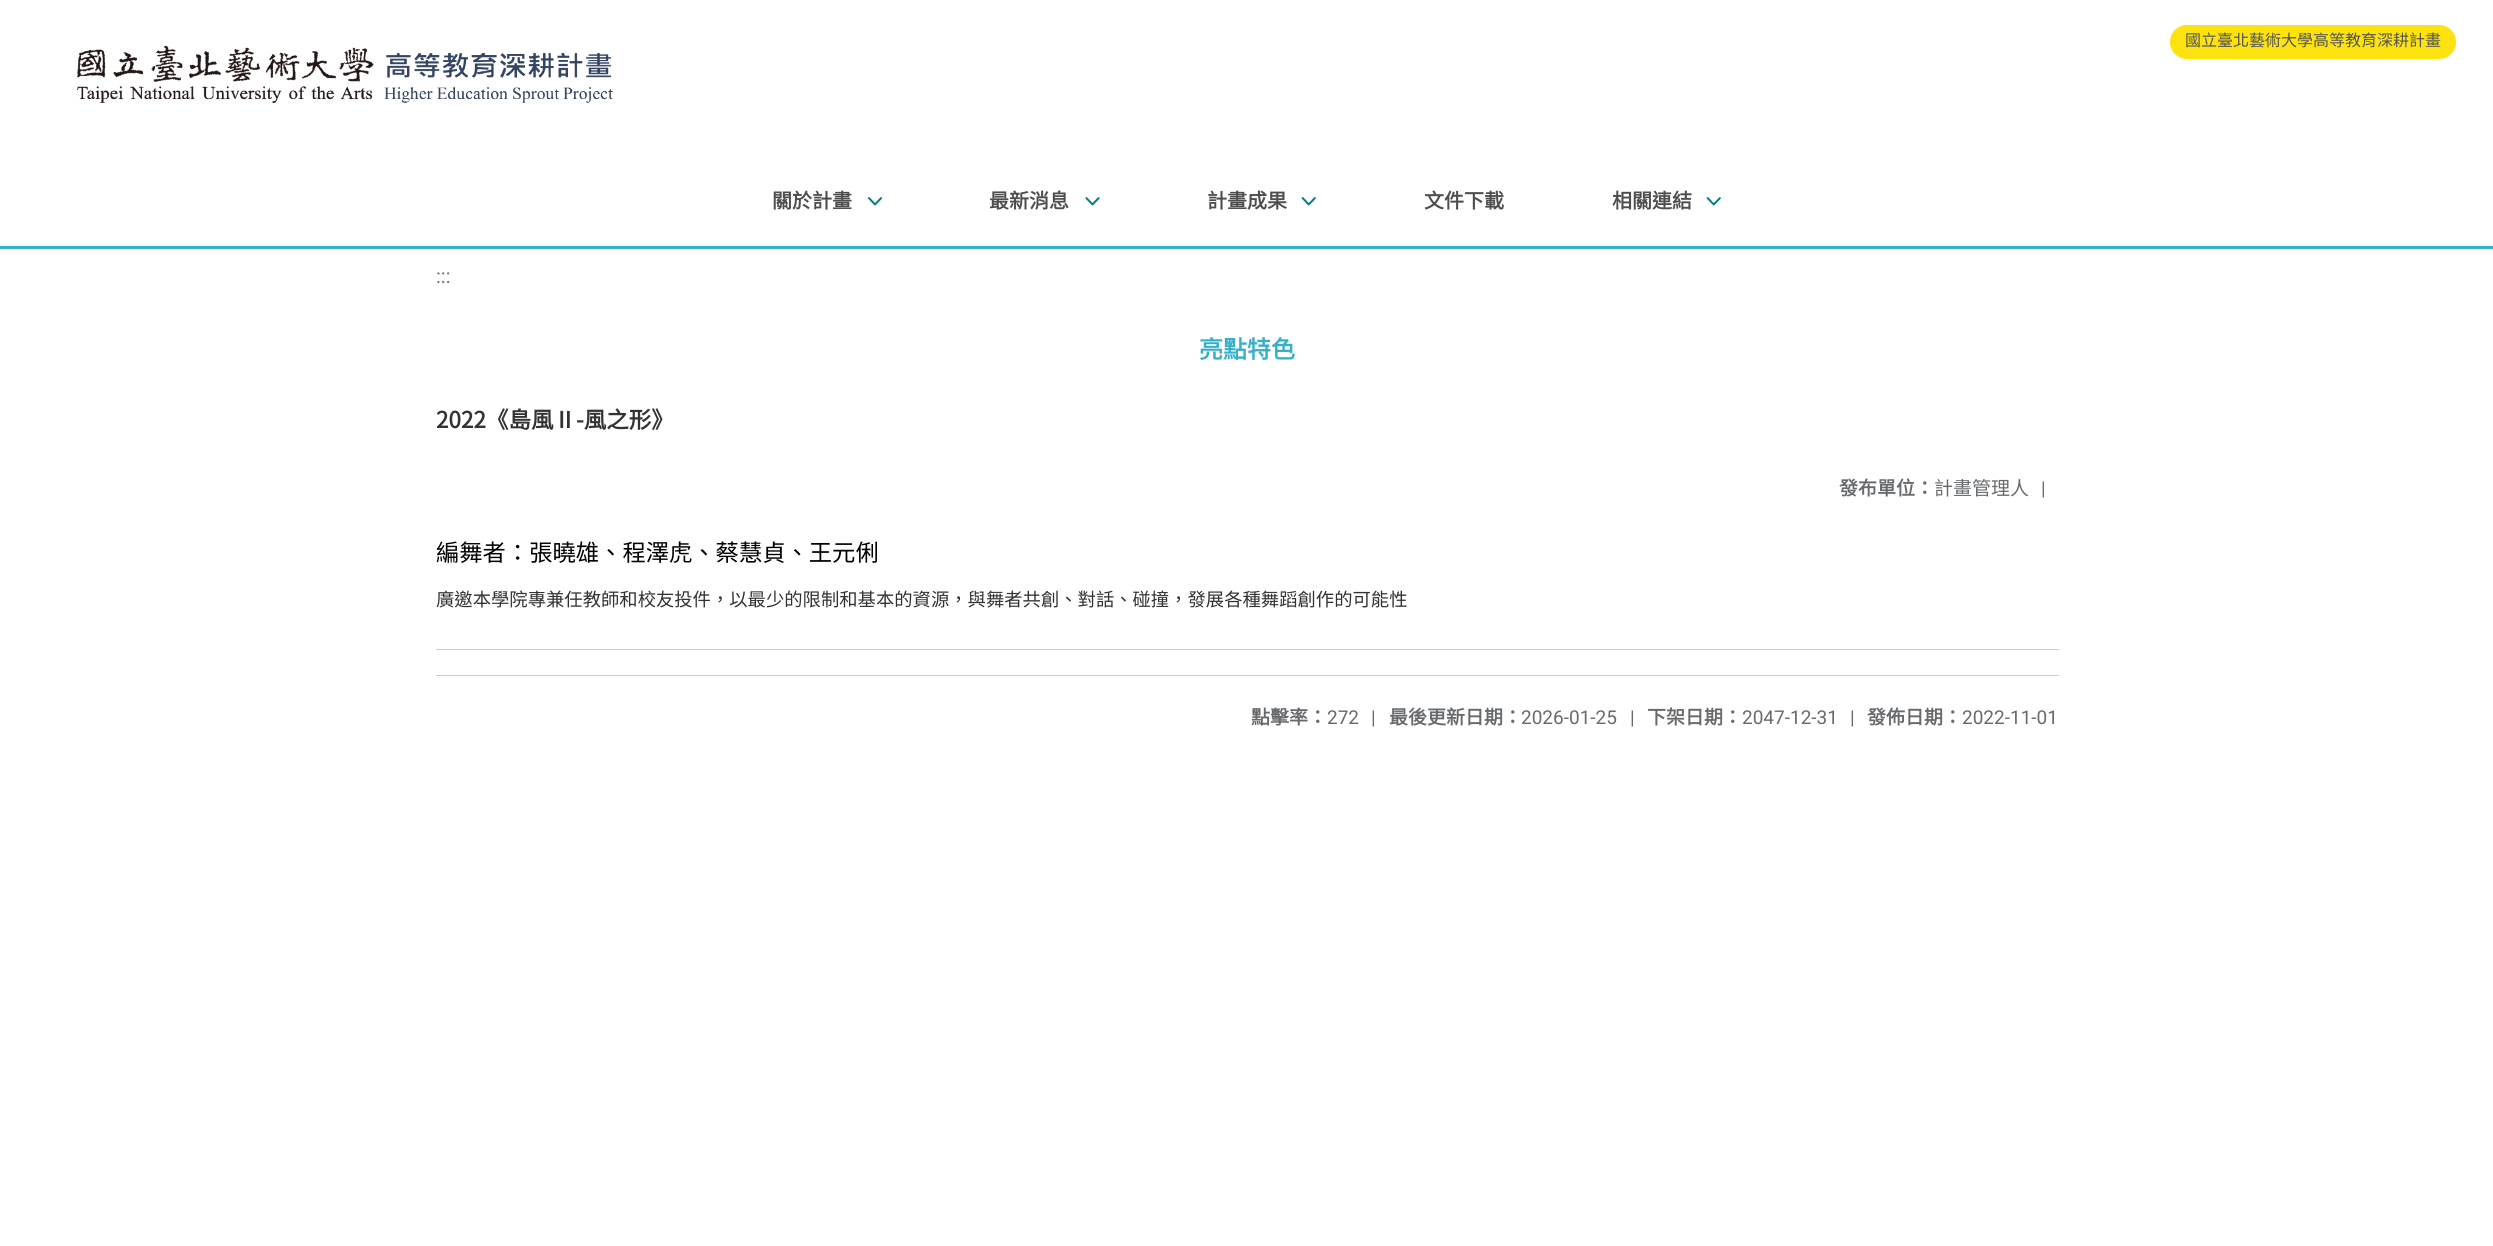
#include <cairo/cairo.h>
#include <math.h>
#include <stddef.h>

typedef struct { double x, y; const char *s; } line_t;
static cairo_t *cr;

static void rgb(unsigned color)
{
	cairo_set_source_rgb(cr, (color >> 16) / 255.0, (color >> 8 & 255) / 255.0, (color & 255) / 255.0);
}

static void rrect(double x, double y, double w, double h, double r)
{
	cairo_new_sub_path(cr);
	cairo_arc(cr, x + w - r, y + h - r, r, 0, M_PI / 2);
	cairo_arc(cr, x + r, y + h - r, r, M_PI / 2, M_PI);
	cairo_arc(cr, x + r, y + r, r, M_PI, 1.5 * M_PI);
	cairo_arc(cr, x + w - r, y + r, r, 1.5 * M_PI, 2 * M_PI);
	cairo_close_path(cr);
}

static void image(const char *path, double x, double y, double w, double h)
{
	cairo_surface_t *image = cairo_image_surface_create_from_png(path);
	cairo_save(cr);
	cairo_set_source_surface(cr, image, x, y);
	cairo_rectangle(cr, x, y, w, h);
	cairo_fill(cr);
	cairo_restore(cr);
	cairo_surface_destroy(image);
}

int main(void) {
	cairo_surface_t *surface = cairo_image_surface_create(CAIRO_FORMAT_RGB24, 2493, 1246);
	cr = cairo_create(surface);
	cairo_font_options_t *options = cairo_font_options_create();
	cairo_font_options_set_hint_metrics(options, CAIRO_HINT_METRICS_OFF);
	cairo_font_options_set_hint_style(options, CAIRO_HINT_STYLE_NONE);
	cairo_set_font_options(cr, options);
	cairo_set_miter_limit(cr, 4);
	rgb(0xffffff);
	cairo_paint(cr);
	rgb(0xfce20e);
	rrect(2170, 25, 286, 34, 17);
	cairo_fill(cr);
	image("img/1.png", 77, 45, 536, 58);
	rgb(0x36afc9);
	cairo_rectangle(cr, 0, 246, 2493, 3);
	cairo_fill(cr);
	image("img/2.png", 868, 197, 15, 9);
	image("img/3.png", 1085, 197, 15, 9);
	image("img/4.png", 1301, 197, 15, 9);
	image("img/4.png", 1706, 197, 15, 9);
	rgb(0xcccccc);
	cairo_rectangle(cr, 436, 649, 1623, 1);
	cairo_fill(cr);
	cairo_rectangle(cr, 436, 675, 1623, 1);
	cairo_fill(cr);
	cairo_select_font_face(cr, "Noto Sans CJK TC", CAIRO_FONT_SLANT_NORMAL, CAIRO_FONT_WEIGHT_NORMAL);
	cairo_set_font_size(cr, 16);
	rgb(0x545454);
	cairo_move_to(cr, 2185, 46);
	cairo_show_text(cr, "國立臺北藝術大學高等教育深耕計畫");
	cairo_select_font_face(cr, "Noto Sans CJK TC", CAIRO_FONT_SLANT_NORMAL, CAIRO_FONT_WEIGHT_BOLD);
	cairo_set_font_size(cr, 20);
	rgb(0x4e4e4e);
	{
		static const line_t items[] = {
			{772, 208, "關於計畫"},
			{989, 208, "最新消息"},
			{1207, 208, "計畫成果"},
			{1424, 208, "文件下載"},
			{1612, 208, "相關連結"},
		};
		for (size_t i = 0; i < sizeof items / sizeof *items; i++) {
			cairo_move_to(cr, items[i].x, items[i].y);
			cairo_show_text(cr, items[i].s);
		}
	}
	cairo_select_font_face(cr, "Roboto", CAIRO_FONT_SLANT_NORMAL, CAIRO_FONT_WEIGHT_NORMAL);
	rgb(0x757474);
	cairo_move_to(cr, 436, 283);
	cairo_show_text(cr, ":::");
	cairo_select_font_face(cr, "Noto Sans CJK TC", CAIRO_FONT_SLANT_NORMAL, CAIRO_FONT_WEIGHT_BOLD);
	cairo_set_font_size(cr, 24);
	rgb(0x36afc9);
	cairo_move_to(cr, 1199, 358);
	cairo_show_text(cr, "亮點特色");
	cairo_set_font_size(cr, 22.5);
	rgb(0x333333);
	cairo_move_to(cr, 436, 428);
	cairo_show_text(cr, "2022《島風Ⅱ-風之形》");
	cairo_set_font_size(cr, 19);
	rgb(0x676a6c);
	cairo_move_to(cr, 1839, 495);
	cairo_show_text(cr, "發布單位：");
	cairo_select_font_face(cr, "Noto Sans CJK TC", CAIRO_FONT_SLANT_NORMAL, CAIRO_FONT_WEIGHT_NORMAL);
	cairo_move_to(cr, 1934, 495);
	cairo_show_text(cr, "計畫管理人");
	cairo_select_font_face(cr, "Roboto", CAIRO_FONT_SLANT_NORMAL, CAIRO_FONT_WEIGHT_NORMAL);
	cairo_move_to(cr, 2041, 495);
	cairo_show_text(cr, "|");
	cairo_select_font_face(cr, "Noto Sans CJK TC", CAIRO_FONT_SLANT_NORMAL, CAIRO_FONT_WEIGHT_NORMAL);
	cairo_set_font_size(cr, 23.3);
	rgb(0x000000);
	cairo_move_to(cr, 436, 561);
	cairo_show_text(cr, "編舞者：張曉雄、程澤虎、蔡慧貞、王元俐");
	cairo_set_font_size(cr, 18.33);
	rgb(0x333333);
	cairo_move_to(cr, 436, 606);
	cairo_show_text(cr, "廣邀本學院專兼任教師和校友投件，以最少的限制和基本的資源，與舞者共創、對話、碰撞，發展各種舞蹈創作的可能性");
	cairo_select_font_face(cr, "Noto Sans CJK TC", CAIRO_FONT_SLANT_NORMAL, CAIRO_FONT_WEIGHT_BOLD);
	cairo_set_font_size(cr, 19);
	rgb(0x676a6c);
	cairo_move_to(cr, 1251, 724);
	cairo_show_text(cr, "點擊率：");
	cairo_select_font_face(cr, "Roboto", CAIRO_FONT_SLANT_NORMAL, CAIRO_FONT_WEIGHT_NORMAL);
	cairo_move_to(cr, 1327, 724);
	cairo_show_text(cr, "272");
	cairo_move_to(cr, 1371, 724);
	cairo_show_text(cr, "|");
	cairo_select_font_face(cr, "Noto Sans CJK TC", CAIRO_FONT_SLANT_NORMAL, CAIRO_FONT_WEIGHT_BOLD);
	cairo_move_to(cr, 1389, 724);
	cairo_show_text(cr, "最後更新日期：");
	cairo_select_font_face(cr, "Roboto", CAIRO_FONT_SLANT_NORMAL, CAIRO_FONT_WEIGHT_NORMAL);
	cairo_move_to(cr, 1521, 724);
	cairo_show_text(cr, "2026-01-25");
	cairo_move_to(cr, 1630, 724);
	cairo_show_text(cr, "|");
	cairo_select_font_face(cr, "Noto Sans CJK TC", CAIRO_FONT_SLANT_NORMAL, CAIRO_FONT_WEIGHT_BOLD);
	cairo_move_to(cr, 1647, 724);
	cairo_show_text(cr, "下架日期：");
	cairo_select_font_face(cr, "Roboto", CAIRO_FONT_SLANT_NORMAL, CAIRO_FONT_WEIGHT_NORMAL);
	cairo_move_to(cr, 1742, 724);
	cairo_show_text(cr, "2047-12-31");
	cairo_move_to(cr, 1850, 724);
	cairo_show_text(cr, "|");
	cairo_select_font_face(cr, "Noto Sans CJK TC", CAIRO_FONT_SLANT_NORMAL, CAIRO_FONT_WEIGHT_BOLD);
	cairo_move_to(cr, 1867, 724);
	cairo_show_text(cr, "發佈日期：");
	cairo_select_font_face(cr, "Roboto", CAIRO_FONT_SLANT_NORMAL, CAIRO_FONT_WEIGHT_NORMAL);
	cairo_move_to(cr, 1962, 724);
	cairo_show_text(cr, "2022-11-01");
	cairo_surface_write_to_png(surface, "page.png");
	cairo_font_options_destroy(options);
	cairo_destroy(cr);
	cairo_surface_destroy(surface);
	return 0;
}
